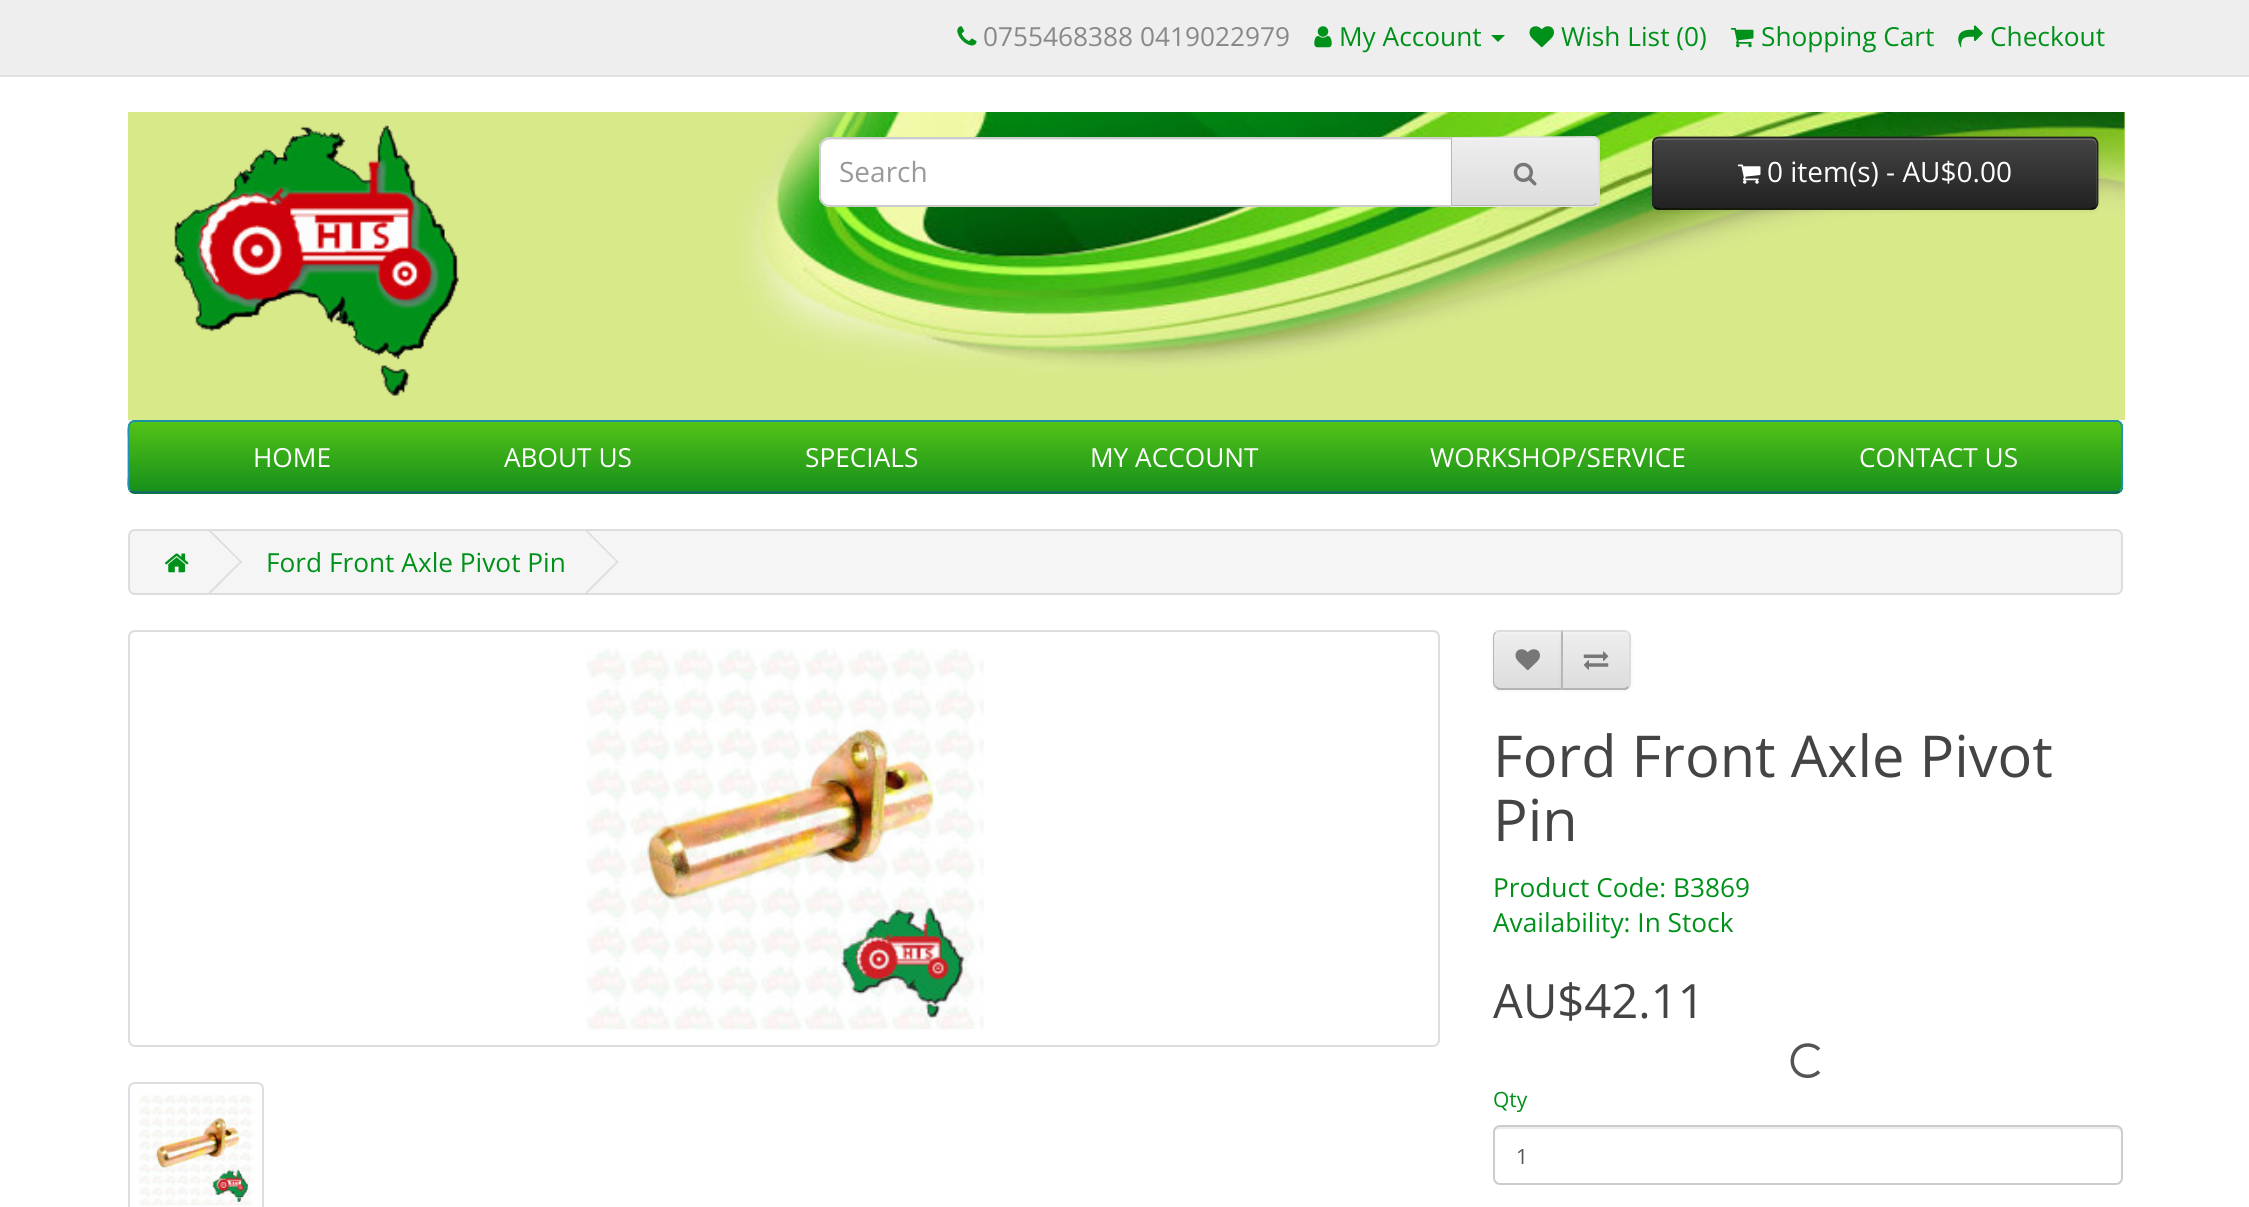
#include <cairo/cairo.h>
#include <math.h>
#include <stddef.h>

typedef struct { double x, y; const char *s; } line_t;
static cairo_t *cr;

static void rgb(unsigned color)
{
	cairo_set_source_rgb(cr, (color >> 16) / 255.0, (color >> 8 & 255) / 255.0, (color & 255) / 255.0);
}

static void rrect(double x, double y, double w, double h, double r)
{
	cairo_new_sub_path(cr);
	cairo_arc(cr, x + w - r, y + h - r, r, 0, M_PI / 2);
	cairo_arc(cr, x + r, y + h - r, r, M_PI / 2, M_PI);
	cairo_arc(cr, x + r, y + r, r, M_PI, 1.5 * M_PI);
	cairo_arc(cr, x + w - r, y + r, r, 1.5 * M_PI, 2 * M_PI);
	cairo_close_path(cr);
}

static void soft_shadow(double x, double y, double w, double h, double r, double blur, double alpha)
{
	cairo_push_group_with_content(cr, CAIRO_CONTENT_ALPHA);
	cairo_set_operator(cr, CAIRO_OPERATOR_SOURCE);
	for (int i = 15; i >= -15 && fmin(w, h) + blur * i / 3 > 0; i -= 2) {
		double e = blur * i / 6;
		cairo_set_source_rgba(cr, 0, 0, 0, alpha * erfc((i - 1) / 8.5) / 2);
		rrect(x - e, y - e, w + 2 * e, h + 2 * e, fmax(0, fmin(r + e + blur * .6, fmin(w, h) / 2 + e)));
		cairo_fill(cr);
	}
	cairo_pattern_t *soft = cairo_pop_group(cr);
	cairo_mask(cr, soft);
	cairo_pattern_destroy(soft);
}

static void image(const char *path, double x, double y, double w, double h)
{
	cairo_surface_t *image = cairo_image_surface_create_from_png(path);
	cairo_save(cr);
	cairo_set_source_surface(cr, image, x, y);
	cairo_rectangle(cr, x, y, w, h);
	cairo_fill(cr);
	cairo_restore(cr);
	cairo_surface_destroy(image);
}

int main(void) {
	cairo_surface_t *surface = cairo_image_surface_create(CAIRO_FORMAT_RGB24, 2249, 1207);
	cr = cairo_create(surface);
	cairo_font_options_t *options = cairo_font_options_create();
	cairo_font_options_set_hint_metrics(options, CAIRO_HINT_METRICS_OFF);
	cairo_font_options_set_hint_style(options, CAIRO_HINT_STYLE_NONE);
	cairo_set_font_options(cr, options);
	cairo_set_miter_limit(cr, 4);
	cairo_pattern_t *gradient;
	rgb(0xffffff);
	cairo_paint(cr);
	rgb(0xeeeeee);
	cairo_rectangle(cr, 0, 0, 2249, 75);
	cairo_fill(cr);
	rgb(0xe2e2e2);
	cairo_rectangle(cr, 0, 75, 2249, 2);
	cairo_fill(cr);
	image("img/1.png", 957, 26, 20, 20);
	image("img/2.png", 1314, 26, 18, 22);
	rgb(0x00911a);
	cairo_new_path(cr);
	cairo_move_to(cr, 1491, 35);
	cairo_line_to(cr, 1505, 35);
	cairo_line_to(cr, 1498, 42);
	cairo_close_path(cr);
	cairo_fill(cr);
	image("img/3.png", 1529, 26, 25, 22);
	image("img/4.png", 1730, 28, 24, 20);
	image("img/5.png", 1958, 25, 25, 23);
	rgb(0xd8e989);
	cairo_rectangle(cr, 128, 112, 1997, 308);
	cairo_fill(cr);
	image("img/6.png", 735, 112, 1390, 265);
	image("img/7.png", 174, 125, 285, 271);
	rgb(0xffffff);
	cairo_new_path(cr);
	cairo_move_to(cr, 830, 137);
	cairo_line_to(cr, 1453, 137);
	cairo_line_to(cr, 1453, 207);
	cairo_line_to(cr, 830, 207);
	cairo_curve_to(cr, 824, 207, 819, 202, 819, 196);
	cairo_line_to(cr, 819, 148);
	cairo_curve_to(cr, 819, 142, 824, 137, 830, 137);
	cairo_close_path(cr);
	cairo_fill(cr);
	rgb(0xececec);
	cairo_new_path(cr);
	cairo_move_to(cr, 830, 140);
	cairo_line_to(cr, 1451, 140);
	cairo_line_to(cr, 1451, 138);
	cairo_line_to(cr, 830, 138);
	cairo_curve_to(cr, 824, 138, 821, 143, 821, 149);
	cairo_curve_to(cr, 821, 144, 825, 140, 830, 140);
	cairo_close_path(cr);
	cairo_fill(cr);
	cairo_new_path(cr);
	cairo_move_to(cr, 830, 138);
	cairo_line_to(cr, 1452, 138);
	cairo_line_to(cr, 1452, 206);
	cairo_line_to(cr, 830, 206);
	cairo_curve_to(cr, 824.5, 206, 820, 201.5, 820, 196);
	cairo_line_to(cr, 820, 148);
	cairo_curve_to(cr, 820, 142.5, 824.5, 138, 830, 138);
	cairo_close_path(cr);
	rgb(0xcccccc);
	cairo_stroke(cr);
	rgb(0x000000);
	soft_shadow(1451, 138, 149, 70, 7, 2, 0.05);
	rgb(0xe7e7e7);
	cairo_new_path(cr);
	cairo_move_to(cr, 1451, 137);
	cairo_line_to(cr, 1593, 137);
	cairo_curve_to(cr, 1597, 137, 1600, 140, 1600, 144);
	cairo_line_to(cr, 1600, 200);
	cairo_curve_to(cr, 1600, 204, 1597, 207, 1593, 207);
	cairo_line_to(cr, 1451, 207);
	cairo_close_path(cr);
	cairo_fill(cr);
	cairo_save(cr);
	cairo_new_path(cr);
	cairo_move_to(cr, 1451, 137);
	cairo_line_to(cr, 1593, 137);
	cairo_curve_to(cr, 1597, 137, 1600, 140, 1600, 144);
	cairo_line_to(cr, 1600, 200);
	cairo_curve_to(cr, 1600, 204, 1597, 207, 1593, 207);
	cairo_line_to(cr, 1451, 207);
	cairo_close_path(cr);
	cairo_clip(cr);
	gradient = cairo_pattern_create_linear(1525, 138, 1525, 205);
	cairo_pattern_add_color_stop_rgba(gradient, 0, 0.933, 0.933, 0.933, 1);
	cairo_pattern_add_color_stop_rgba(gradient, 1, 0.867, 0.867, 0.867, 1);
	cairo_set_source(cr, gradient);
	cairo_pattern_destroy(gradient);
	cairo_rectangle(cr, 1452, 138, 148, 67);
	cairo_fill(cr);
	cairo_restore(cr);
	rgb(0xf1f1f1);
	cairo_new_path(cr);
	cairo_move_to(cr, 1453, 138);
	cairo_line_to(cr, 1453, 140);
	cairo_line_to(cr, 1592, 140);
	cairo_curve_to(cr, 1595, 140, 1598, 142, 1598, 145);
	cairo_curve_to(cr, 1598, 142, 1597, 138, 1593, 138);
	cairo_close_path(cr);
	cairo_fill(cr);
	rgb(0xdddddd);
	cairo_new_path(cr);
	cairo_move_to(cr, 1451, 137);
	cairo_line_to(cr, 1595, 136);
	cairo_line_to(cr, 1598, 138);
	cairo_line_to(cr, 1596, 140);
	cairo_line_to(cr, 1593, 138);
	cairo_line_to(cr, 1452, 138);
	cairo_close_path(cr);
	cairo_fill(cr);
	cairo_new_path(cr);
	cairo_move_to(cr, 1600, 202);
	cairo_line_to(cr, 1597, 204);
	cairo_line_to(cr, 1596, 203);
	cairo_line_to(cr, 1598, 200);
	cairo_line_to(cr, 1598, 143);
	cairo_line_to(cr, 1596, 140);
	cairo_line_to(cr, 1598, 138);
	cairo_line_to(cr, 1600, 141);
	cairo_close_path(cr);
	cairo_fill(cr);
	rgb(0xb3b3b3);
	cairo_new_path(cr);
	cairo_move_to(cr, 1597, 204);
	cairo_curve_to(cr, 1596, 205, 1594, 206, 1592, 206);
	cairo_line_to(cr, 1451, 206);
	cairo_line_to(cr, 1452, 205);
	cairo_line_to(cr, 1593, 205);
	cairo_line_to(cr, 1596, 203);
	cairo_close_path(cr);
	cairo_fill(cr);
	rgb(0xb7b7b7);
	cairo_new_path(cr);
	cairo_move_to(cr, 1452, 138);
	cairo_line_to(cr, 1452, 205);
	cairo_line_to(cr, 1451, 206);
	cairo_line_to(cr, 1451, 137);
	cairo_close_path(cr);
	cairo_fill(cr);
	image("img/8.png", 1513, 162, 24, 24);
	rgb(0x000000);
	soft_shadow(1652, 138, 446, 74, 7, 2, 0.05);
	cairo_save(cr);
	rrect(1652, 137, 446, 73, 7);
	cairo_clip(cr);
	gradient = cairo_pattern_create_linear(1875, 138, 1875, 208);
	cairo_pattern_add_color_stop_rgba(gradient, 0, 0.267, 0.267, 0.267, 1);
	cairo_pattern_add_color_stop_rgba(gradient, 1, 0.133, 0.133, 0.133, 1);
	cairo_set_source(cr, gradient);
	cairo_pattern_destroy(gradient);
	cairo_rectangle(cr, 1652, 138, 446, 70);
	cairo_fill(cr);
	cairo_restore(cr);
	cairo_set_source_rgba(cr, 1, 1, 1, 0.2);
	cairo_new_path(cr);
	cairo_move_to(cr, 1659, 140);
	cairo_line_to(cr, 2091, 140);
	cairo_curve_to(cr, 2094, 140, 2096, 142, 2096, 145);
	cairo_line_to(cr, 2096, 206);
	cairo_curve_to(cr, 2097, 205, 2097, 204, 2097, 203);
	cairo_line_to(cr, 2097, 143);
	cairo_curve_to(cr, 2097, 140, 2095, 138, 2092, 138);
	cairo_line_to(cr, 1659, 138);
	cairo_curve_to(cr, 1656, 138, 1654, 140, 1654, 143);
	cairo_line_to(cr, 1654, 145);
	cairo_curve_to(cr, 1654, 142, 1656, 140, 1659, 140);
	cairo_close_path(cr);
	cairo_fill(cr);
	cairo_new_path(cr);
	cairo_move_to(cr, 2095.5, 207.5);
	cairo_curve_to(cr, 2094.5, 208.5, 2093, 209, 2091, 209);
	cairo_line_to(cr, 1659, 209);
	cairo_curve_to(cr, 1657.5, 209, 1656, 208.5, 1654.5, 207.5);
	rgb(0x000000);
	cairo_set_line_width(cr, 1.8);
	cairo_stroke(cr);
	cairo_new_path(cr);
	cairo_move_to(cr, 1654.5, 207.5);
	cairo_curve_to(cr, 1653.5, 206, 1653, 204.5, 1653, 203);
	cairo_line_to(cr, 1653, 143.5);
	cairo_curve_to(cr, 1653, 142, 1653.5, 140.5, 1654.5, 139);
	cairo_curve_to(cr, 1656, 138, 1657.5, 137.5, 1659, 137.5);
	cairo_line_to(cr, 2091, 137.5);
	cairo_curve_to(cr, 2093, 137.5, 2094.5, 138, 2095.5, 139);
	cairo_curve_to(cr, 2096.5, 140.5, 2097.5, 142, 2097.5, 143.5);
	cairo_line_to(cr, 2097.5, 203);
	cairo_curve_to(cr, 2097.5, 204.5, 2096.5, 206, 2095.5, 207.5);
	rgb(0x222222);
	cairo_stroke(cr);
	image("img/9.png", 1737, 164, 24, 20);
	rgb(0x00911a);
	rrect(128, 420, 1995, 74, 7);
	cairo_fill(cr);
	cairo_save(cr);
	rrect(128, 420, 1995, 74, 7);
	cairo_clip(cr);
	gradient = cairo_pattern_create_linear(1125, 422, 1125, 492);
	cairo_pattern_add_color_stop_rgba(gradient, 0, 0.325, 0.765, 0.09, 1);
	cairo_pattern_add_color_stop_rgba(gradient, 1, 0.086, 0.561, 0.106, 1);
	cairo_set_source(cr, gradient);
	cairo_pattern_destroy(gradient);
	cairo_rectangle(cr, 128, 422, 1995, 70);
	cairo_fill(cr);
	cairo_restore(cr);
	cairo_new_path(cr);
	cairo_move_to(cr, 2120, 491);
	cairo_curve_to(cr, 2119, 492, 2117.5, 492.5, 2116, 492.5);
	cairo_line_to(cr, 135, 492.5);
	cairo_curve_to(cr, 133, 492.5, 131.5, 492, 130.5, 491);
	rgb(0x145e7a);
	cairo_stroke(cr);
	cairo_new_path(cr);
	cairo_move_to(cr, 130.5, 491);
	cairo_curve_to(cr, 127, 487.5, 128.5, 479.5, 128.5, 476.5);
	cairo_line_to(cr, 128.5, 437);
	cairo_curve_to(cr, 128.5, 432.5, 126.5, 421, 135, 421);
	cairo_line_to(cr, 2116, 421);
	cairo_curve_to(cr, 2124, 421, 2122, 432.5, 2122, 437);
	cairo_line_to(cr, 2122, 476.5);
	cairo_curve_to(cr, 2122, 479.5, 2123.5, 487.5, 2120, 491);
	rgb(0x1f90bb);
	cairo_stroke(cr);
	rgb(0xf5f5f5);
	rrect(129, 530, 1993, 64, 6);
	cairo_fill_preserve(cr);
	rgb(0xdddddd);
	cairo_set_line_width(cr, 2);
	cairo_stroke(cr);
	image("img/10.png", 165, 553, 24, 20);
	cairo_new_path(cr);
	cairo_move_to(cr, 208.5, 531);
	cairo_line_to(cr, 210, 529.5);
	cairo_line_to(cr, 242, 562);
	cairo_line_to(cr, 241, 563);
	cairo_close_path(cr);
	cairo_fill(cr);
	cairo_new_path(cr);
	cairo_move_to(cr, 208.5, 592.5);
	cairo_line_to(cr, 241, 560.5);
	cairo_line_to(cr, 242, 562);
	cairo_line_to(cr, 210, 594);
	cairo_close_path(cr);
	cairo_fill(cr);
	cairo_new_path(cr);
	cairo_move_to(cr, 585.5, 531);
	cairo_line_to(cr, 586.5, 529.5);
	cairo_line_to(cr, 618.5, 562);
	cairo_line_to(cr, 617.5, 563);
	cairo_close_path(cr);
	cairo_fill(cr);
	cairo_new_path(cr);
	cairo_move_to(cr, 585.5, 592.5);
	cairo_line_to(cr, 617.5, 560.5);
	cairo_line_to(cr, 618.5, 562);
	cairo_line_to(cr, 586.5, 594);
	cairo_close_path(cr);
	cairo_fill(cr);
	rrect(129, 631, 1310, 415, 6);
	cairo_stroke(cr);
	image("img/11.png", 586, 648, 398, 383);
	rrect(129, 1083, 134, 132, 6);
	cairo_stroke(cr);
	image("img/12.png", 138, 1094, 116, 112);
	rgb(0x000000);
	soft_shadow(1493, 632, 70, 59, 7, 2, 0.05);
	rgb(0xe7e7e7);
	cairo_new_path(cr);
	cairo_move_to(cr, 1500, 630);
	cairo_line_to(cr, 1563, 630);
	cairo_line_to(cr, 1563, 690);
	cairo_line_to(cr, 1500, 690);
	cairo_curve_to(cr, 1496, 690, 1493, 687, 1493, 683);
	cairo_line_to(cr, 1493, 637);
	cairo_curve_to(cr, 1493, 633, 1496, 630, 1500, 630);
	cairo_close_path(cr);
	cairo_fill(cr);
	cairo_save(cr);
	cairo_new_path(cr);
	cairo_move_to(cr, 1500, 630);
	cairo_line_to(cr, 1563, 630);
	cairo_line_to(cr, 1563, 690);
	cairo_line_to(cr, 1500, 690);
	cairo_curve_to(cr, 1496, 690, 1493, 687, 1493, 683);
	cairo_line_to(cr, 1493, 637);
	cairo_curve_to(cr, 1493, 633, 1496, 630, 1500, 630);
	cairo_close_path(cr);
	cairo_clip(cr);
	gradient = cairo_pattern_create_linear(1528, 632, 1528, 688);
	cairo_pattern_add_color_stop_rgba(gradient, 0, 0.933, 0.933, 0.933, 1);
	cairo_pattern_add_color_stop_rgba(gradient, 1, 0.867, 0.867, 0.867, 1);
	cairo_set_source(cr, gradient);
	cairo_pattern_destroy(gradient);
	cairo_rectangle(cr, 1493, 632, 68, 56);
	cairo_fill(cr);
	cairo_restore(cr);
	rgb(0xf1f1f1);
	cairo_new_path(cr);
	cairo_move_to(cr, 1500, 634);
	cairo_line_to(cr, 1561, 634);
	cairo_line_to(cr, 1561, 632);
	cairo_line_to(cr, 1500, 632);
	cairo_curve_to(cr, 1498, 632, 1495, 634, 1495, 636);
	cairo_curve_to(cr, 1496, 635, 1498, 634, 1500, 634);
	cairo_close_path(cr);
	cairo_fill(cr);
	rgb(0xdddddd);
	cairo_new_path(cr);
	cairo_move_to(cr, 1500, 630);
	cairo_curve_to(cr, 1498, 630, 1496, 631, 1495, 632);
	cairo_line_to(cr, 1496, 633);
	cairo_curve_to(cr, 1497, 632, 1499, 632, 1500, 632);
	cairo_line_to(cr, 1561, 632);
	cairo_line_to(cr, 1563, 630);
	cairo_close_path(cr);
	cairo_fill(cr);
	rgb(0xb3b3b3);
	cairo_new_path(cr);
	cairo_move_to(cr, 1563, 690);
	cairo_line_to(cr, 1498, 690);
	cairo_line_to(cr, 1495, 687);
	cairo_line_to(cr, 1496, 686);
	cairo_curve_to(cr, 1497, 687, 1499, 688, 1500, 688);
	cairo_line_to(cr, 1561, 688);
	cairo_close_path(cr);
	cairo_fill(cr);
	rgb(0xb7b7b7);
	cairo_new_path(cr);
	cairo_move_to(cr, 1495, 632);
	cairo_curve_to(cr, 1494, 633, 1493, 635, 1493, 637);
	cairo_line_to(cr, 1493, 682);
	cairo_curve_to(cr, 1493, 684, 1494, 686, 1495, 687);
	cairo_line_to(cr, 1496, 686);
	cairo_curve_to(cr, 1495, 685, 1494, 684, 1494, 682);
	cairo_line_to(cr, 1494, 637);
	cairo_curve_to(cr, 1494, 635, 1495, 634, 1496, 633);
	cairo_close_path(cr);
	cairo_fill(cr);
	image("img/13.png", 1515, 649, 25, 22);
	rgb(0x000000);
	soft_shadow(1561, 632, 70, 59, 7, 2, 0.05);
	cairo_save(cr);
	cairo_new_path(cr);
	cairo_move_to(cr, 1561, 630);
	cairo_line_to(cr, 1624, 630);
	cairo_curve_to(cr, 1628, 630, 1631, 633, 1631, 637);
	cairo_line_to(cr, 1631, 683);
	cairo_curve_to(cr, 1631, 687, 1628, 690, 1624, 690);
	cairo_line_to(cr, 1561, 690);
	cairo_close_path(cr);
	cairo_clip(cr);
	gradient = cairo_pattern_create_linear(1596, 632, 1596, 688);
	cairo_pattern_add_color_stop_rgba(gradient, 0, 0.933, 0.933, 0.933, 1);
	cairo_pattern_add_color_stop_rgba(gradient, 1, 0.867, 0.867, 0.867, 1);
	cairo_set_source(cr, gradient);
	cairo_pattern_destroy(gradient);
	cairo_rectangle(cr, 1563, 632, 68, 56);
	cairo_fill(cr);
	cairo_restore(cr);
	rgb(0xf1f1f1);
	cairo_new_path(cr);
	cairo_move_to(cr, 1563, 634);
	cairo_line_to(cr, 1624, 634);
	cairo_curve_to(cr, 1627, 634, 1629, 636, 1629, 639);
	cairo_line_to(cr, 1629, 637);
	cairo_curve_to(cr, 1629, 634, 1627, 632, 1624, 632);
	cairo_line_to(cr, 1563, 632);
	cairo_close_path(cr);
	cairo_fill(cr);
	rgb(0xdddddd);
	cairo_new_path(cr);
	cairo_move_to(cr, 1561, 630);
	cairo_line_to(cr, 1563, 632);
	cairo_line_to(cr, 1624, 632);
	cairo_curve_to(cr, 1626, 632, 1627, 632, 1628, 633);
	cairo_line_to(cr, 1629, 632);
	cairo_curve_to(cr, 1628, 631, 1626, 630, 1624, 630);
	cairo_close_path(cr);
	cairo_fill(cr);
	cairo_new_path(cr);
	cairo_move_to(cr, 1631, 682);
	cairo_line_to(cr, 1631, 637);
	cairo_curve_to(cr, 1631, 635, 1630, 633, 1629, 632);
	cairo_line_to(cr, 1628, 633);
	cairo_curve_to(cr, 1628, 634, 1629, 636, 1629, 637);
	cairo_line_to(cr, 1629, 682);
	cairo_curve_to(cr, 1629, 684, 1628, 685, 1628, 686);
	cairo_line_to(cr, 1629, 688);
	cairo_curve_to(cr, 1630, 686, 1631, 684, 1631, 682);
	cairo_close_path(cr);
	cairo_fill(cr);
	rgb(0xb3b3b3);
	cairo_new_path(cr);
	cairo_move_to(cr, 1626, 690);
	cairo_line_to(cr, 1561, 690);
	cairo_line_to(cr, 1563, 688);
	cairo_line_to(cr, 1625, 688);
	cairo_line_to(cr, 1628, 686);
	cairo_line_to(cr, 1629, 688);
	cairo_close_path(cr);
	cairo_fill(cr);
	rgb(0xb7b7b7);
	cairo_new_path(cr);
	cairo_move_to(cr, 1561, 630);
	cairo_line_to(cr, 1561, 690);
	cairo_line_to(cr, 1563, 688);
	cairo_line_to(cr, 1563, 632);
	cairo_close_path(cr);
	cairo_fill(cr);
	image("img/14.png", 1583, 651, 26, 19);
	cairo_new_path(cr);
	cairo_move_to(cr, 1819, 1071.5);
	cairo_curve_to(cr, 1815, 1075.5, 1810, 1077, 1804.5, 1076);
	cairo_curve_to(cr, 1786.5, 1072.5, 1789, 1045, 1808, 1045);
	cairo_curve_to(cr, 1812, 1045, 1816, 1046.5, 1819, 1049.5);
	rgb(0x545454);
	cairo_set_line_width(cr, 3.5);
	cairo_stroke(cr);
	rgb(0xececec);
	cairo_new_path(cr);
	cairo_move_to(cr, 1500, 1129);
	cairo_line_to(cr, 2116, 1129);
	cairo_curve_to(cr, 2119, 1129, 2121, 1131, 2121, 1134);
	cairo_line_to(cr, 2121, 1132);
	cairo_curve_to(cr, 2121, 1129, 2119, 1127, 2116, 1127);
	cairo_line_to(cr, 1500, 1127);
	cairo_curve_to(cr, 1498, 1127, 1495, 1129, 1495, 1131);
	cairo_curve_to(cr, 1496, 1130, 1498, 1129, 1500, 1129);
	cairo_close_path(cr);
	cairo_fill(cr);
	rrect(1494, 1126, 628, 58, 6);
	rgb(0xcccccc);
	cairo_set_line_width(cr, 2);
	cairo_stroke(cr);
	cairo_select_font_face(cr, "Open Sans", CAIRO_FONT_SLANT_NORMAL, CAIRO_FONT_WEIGHT_NORMAL);
	cairo_set_font_size(cr, 26.25);
	rgb(0x888888);
	cairo_move_to(cr, 983, 46);
	cairo_show_text(cr, "0755468388 0419022979");
	rgb(0x00911a);
	{
		static const line_t items[] = {
			{1339, 46, "My Account"},
			{1561, 46, "Wish List (0)"},
			{1761, 46, "Shopping Cart"},
			{1990, 46, "Checkout"},
		};
		for (size_t i = 0; i < sizeof items / sizeof *items; i++) {
			cairo_move_to(cr, items[i].x, items[i].y);
			cairo_show_text(cr, items[i].s);
		}
	}
	cairo_set_font_size(cr, 28);
	rgb(0x999999);
	cairo_move_to(cr, 839, 182);
	cairo_show_text(cr, "Search");
	rgb(0xffffff);
	cairo_move_to(cr, 1767, 182);
	cairo_show_text(cr, "0 item(s) - AU$0.00");
	cairo_set_font_size(cr, 26.25);
	{
		static const line_t items[] = {
			{253, 467, "HOME"},
			{504, 467, "ABOUT US"},
			{805, 467, "SPECIALS"},
			{1090, 467, "MY ACCOUNT"},
			{1430, 467, "WORKSHOP/SERVICE"},
			{1859, 467, "CONTACT US"},
		};
		for (size_t i = 0; i < sizeof items / sizeof *items; i++) {
			cairo_move_to(cr, items[i].x, items[i].y);
			cairo_show_text(cr, items[i].s);
		}
	}
	rgb(0x00911a);
	cairo_move_to(cr, 266, 572);
	cairo_show_text(cr, "Ford Front Axle Pivot Pin");
	cairo_set_font_size(cr, 57.75);
	rgb(0x444444);
	cairo_move_to(cr, 1493, 777);
	cairo_show_text(cr, "Ford Front Axle Pivot");
	cairo_move_to(cr, 1493, 841);
	cairo_show_text(cr, "Pin");
	cairo_set_font_size(cr, 26.25);
	rgb(0x00911a);
	cairo_move_to(cr, 1493, 897);
	cairo_show_text(cr, "Product Code: B3869");
	cairo_move_to(cr, 1493, 932);
	cairo_show_text(cr, "Availability: In Stock");
	cairo_set_font_size(cr, 47.25);
	rgb(0x444444);
	cairo_move_to(cr, 1493, 1018);
	cairo_show_text(cr, "AU$42.11");
	cairo_set_font_size(cr, 21);
	rgb(0x00911a);
	cairo_move_to(cr, 1493, 1107);
	cairo_show_text(cr, "Qty");
	rgb(0x555555);
	cairo_move_to(cr, 1516, 1164);
	cairo_show_text(cr, "1");
	cairo_surface_write_to_png(surface, "page.png");
	cairo_font_options_destroy(options);
	cairo_destroy(cr);
	cairo_surface_destroy(surface);
	return 0;
}
